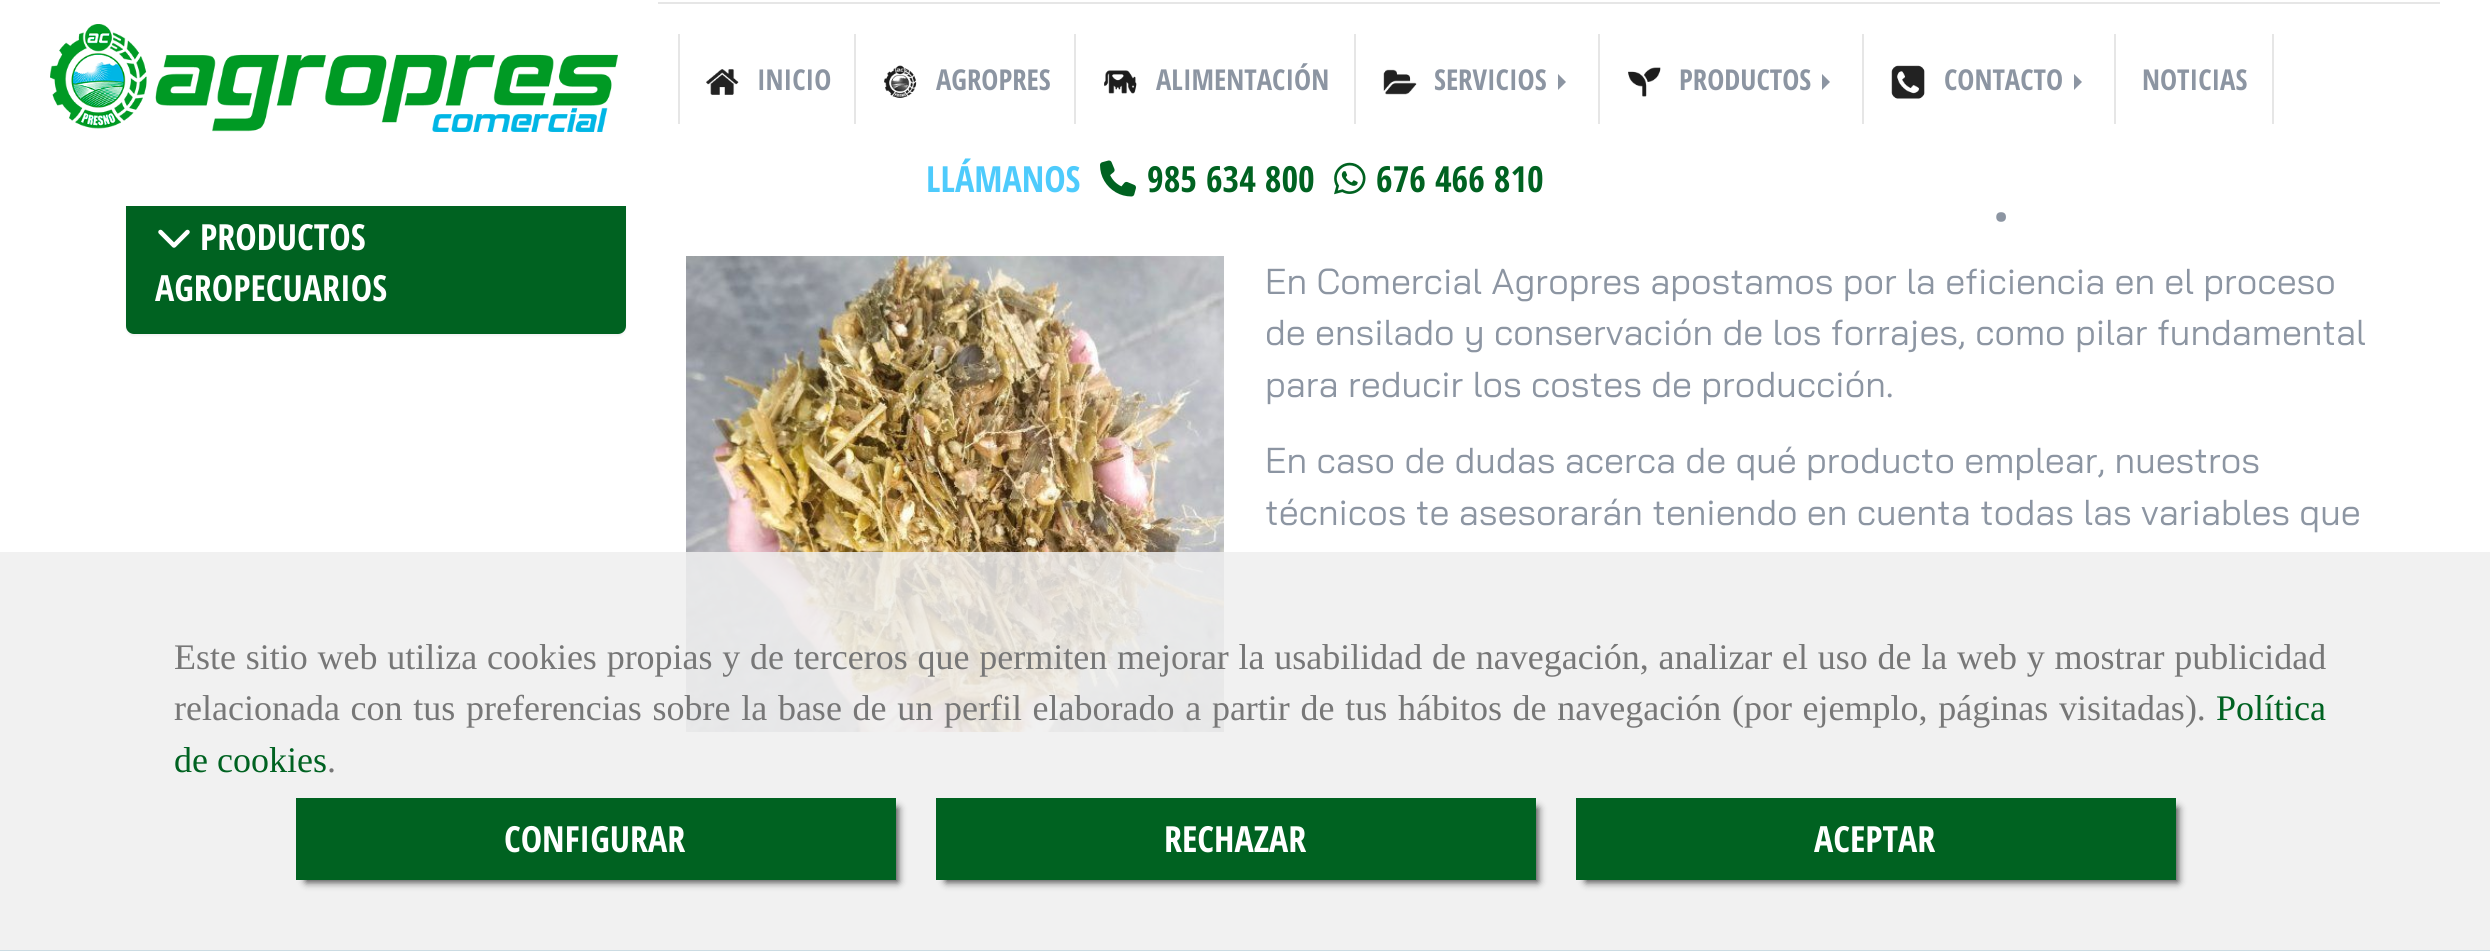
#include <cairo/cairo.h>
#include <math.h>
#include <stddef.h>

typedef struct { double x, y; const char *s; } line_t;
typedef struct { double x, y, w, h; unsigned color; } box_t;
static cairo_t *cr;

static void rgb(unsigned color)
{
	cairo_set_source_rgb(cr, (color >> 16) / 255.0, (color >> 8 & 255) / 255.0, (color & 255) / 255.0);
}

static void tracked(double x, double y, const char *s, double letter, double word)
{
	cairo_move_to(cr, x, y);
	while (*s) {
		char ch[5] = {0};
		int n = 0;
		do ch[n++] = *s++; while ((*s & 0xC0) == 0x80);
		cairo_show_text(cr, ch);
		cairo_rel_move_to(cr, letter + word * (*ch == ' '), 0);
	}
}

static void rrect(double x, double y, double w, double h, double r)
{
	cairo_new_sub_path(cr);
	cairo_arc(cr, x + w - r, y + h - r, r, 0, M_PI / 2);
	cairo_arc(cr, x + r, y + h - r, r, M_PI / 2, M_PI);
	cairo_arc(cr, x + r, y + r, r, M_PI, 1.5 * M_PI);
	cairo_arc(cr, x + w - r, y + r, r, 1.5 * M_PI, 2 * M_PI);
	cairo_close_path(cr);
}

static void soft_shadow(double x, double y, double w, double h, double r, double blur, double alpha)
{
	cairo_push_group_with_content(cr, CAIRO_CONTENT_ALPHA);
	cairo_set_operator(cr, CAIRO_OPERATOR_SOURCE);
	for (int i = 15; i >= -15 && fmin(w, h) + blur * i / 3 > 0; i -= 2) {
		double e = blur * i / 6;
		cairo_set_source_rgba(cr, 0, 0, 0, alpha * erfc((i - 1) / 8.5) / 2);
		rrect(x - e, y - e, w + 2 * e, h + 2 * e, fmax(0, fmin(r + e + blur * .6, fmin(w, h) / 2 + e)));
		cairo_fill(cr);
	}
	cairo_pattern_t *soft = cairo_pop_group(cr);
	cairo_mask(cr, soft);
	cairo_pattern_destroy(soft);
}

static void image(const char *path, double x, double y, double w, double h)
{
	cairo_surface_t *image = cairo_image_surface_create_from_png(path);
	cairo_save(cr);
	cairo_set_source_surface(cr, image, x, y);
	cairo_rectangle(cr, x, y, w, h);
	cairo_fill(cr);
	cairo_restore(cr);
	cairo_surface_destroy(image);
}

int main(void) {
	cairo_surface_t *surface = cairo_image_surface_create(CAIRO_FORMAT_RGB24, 2490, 951);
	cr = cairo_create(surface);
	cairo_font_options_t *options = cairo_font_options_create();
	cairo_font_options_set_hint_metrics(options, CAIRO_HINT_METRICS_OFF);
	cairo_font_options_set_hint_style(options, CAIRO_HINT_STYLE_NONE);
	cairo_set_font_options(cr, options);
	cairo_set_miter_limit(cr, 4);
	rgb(0xffffff);
	cairo_paint(cr);
	rgb(0x000000);
	soft_shadow(126, 104, 500, 232, 8, 1, 0.05);
	rgb(0x006221);
	rrect(126, 102, 500, 232, 8);
	cairo_fill(cr);
	rgb(0xffffff);
	cairo_rectangle(cr, 125, 102, 502, 104);
	cairo_fill(cr);
	image("img/1.png", 50, 24, 568, 108);
	{
		static const box_t items[] = {
			{658, 2, 1782, 2, 0xe6e6e6},
			{854, 34, 2, 90, 0xe6e6e6},
			{678, 34, 2, 90, 0xe6e6e6},
		};
		for (size_t i = 0; i < sizeof items / sizeof *items; i++) {
			rgb(items[i].color);
			cairo_rectangle(cr, items[i].x, items[i].y, items[i].w, items[i].h);
			cairo_fill(cr);
		}
	}
	image("img/2.png", 706, 69, 33, 26);
	cairo_rectangle(cr, 1074, 34, 2, 90);
	cairo_fill(cr);
	image("img/3.png", 884, 65, 33, 33);
	cairo_rectangle(cr, 1354, 34, 2, 90);
	cairo_fill(cr);
	image("img/4.png", 1104, 70, 33, 24);
	cairo_rectangle(cr, 1598, 34, 2, 90);
	cairo_fill(cr);
	image("img/5.png", 1383, 69, 34, 26);
	rgb(0x8c95a2);
	cairo_new_path(cr);
	cairo_move_to(cr, 1558, 90);
	cairo_line_to(cr, 1558, 74);
	cairo_line_to(cr, 1566, 82);
	cairo_close_path(cr);
	cairo_fill(cr);
	rgb(0xe6e6e6);
	cairo_rectangle(cr, 1862, 34, 2, 90);
	cairo_fill(cr);
	image("img/6.png", 1628, 67, 33, 30);
	rgb(0x8c95a2);
	cairo_new_path(cr);
	cairo_move_to(cr, 1822, 90);
	cairo_line_to(cr, 1822, 74);
	cairo_line_to(cr, 1830, 82);
	cairo_close_path(cr);
	cairo_fill(cr);
	rgb(0xe6e6e6);
	cairo_rectangle(cr, 2114, 34, 2, 90);
	cairo_fill(cr);
	image("img/7.png", 1891, 65, 34, 34);
	rgb(0x8c95a2);
	cairo_new_path(cr);
	cairo_move_to(cr, 2074, 90);
	cairo_line_to(cr, 2074, 74);
	cairo_line_to(cr, 2082, 82);
	cairo_close_path(cr);
	cairo_fill(cr);
	rgb(0xe6e6e6);
	cairo_rectangle(cr, 2272, 34, 2, 90);
	cairo_fill(cr);
	image("img/8.png", 1100, 160, 36, 37);
	image("img/9.png", 1334, 162, 32, 33);
	image("img/10.png", 158, 229, 32, 19);
	image("img/11.png", 686, 256, 538, 476);
	rgb(0x006e9b);
	cairo_rectangle(cr, 0, 950, 2490, 1);
	cairo_fill(cr);
	cairo_set_source_rgba(cr, 0.933, 0.933, 0.933, 0.85);
	cairo_rectangle(cr, 0, 552, 2490, 399);
	cairo_fill(cr);
	rgb(0x000000);
	soft_shadow(306, 808, 592, 74, 0, 4, 0.75);
	rgb(0x006221);
	cairo_rectangle(cr, 296, 798, 600, 82);
	cairo_fill(cr);
	rgb(0x000000);
	soft_shadow(946, 808, 592, 74, 0, 4, 0.75);
	rgb(0x006221);
	cairo_rectangle(cr, 936, 798, 600, 82);
	cairo_fill(cr);
	rgb(0x000000);
	soft_shadow(1586, 808, 592, 74, 0, 4, 0.75);
	rgb(0x006221);
	cairo_rectangle(cr, 1576, 798, 600, 82);
	cairo_fill(cr);
	cairo_select_font_face(cr, "Open Sans Condensed", CAIRO_FONT_SLANT_NORMAL, CAIRO_FONT_WEIGHT_BOLD);
	cairo_set_font_size(cr, 28.75);
	rgb(0x8c95a2);
	{
		static const line_t items[] = {
			{757, 90, "INICIO"},
			{936, 90, "AGROPRES"},
			{1156, 90, "ALIMENTACIÓN"},
			{1434, 90, "SERVICIOS"},
			{1679, 90, "PRODUCTOS"},
			{1944, 90, "CONTACTO"},
			{2142, 90, "NOTICIAS"},
		};
		for (size_t i = 0; i < sizeof items / sizeof *items; i++) {
			cairo_move_to(cr, items[i].x, items[i].y);
			cairo_show_text(cr, items[i].s);
		}
	}
	cairo_set_font_size(cr, 36);
	rgb(0x4ecbfc);
	cairo_move_to(cr, 926, 192);
	cairo_show_text(cr, "LLÁMANOS");
	rgb(0x006221);
	cairo_move_to(cr, 1147, 192);
	cairo_show_text(cr, "985 634 800");
	cairo_move_to(cr, 1376, 192);
	cairo_show_text(cr, "676 466 810");
	rgb(0xffffff);
	cairo_move_to(cr, 200, 250);
	cairo_show_text(cr, "PRODUCTOS");
	cairo_move_to(cr, 155, 301);
	cairo_show_text(cr, "AGROPECUARIOS");
	cairo_set_font_size(cr, 60);
	rgb(0x8c95a2);
	cairo_move_to(cr, 1993, 221);
	cairo_show_text(cr, ".");
	cairo_select_font_face(cr, "Bai Jamjuree", CAIRO_FONT_SLANT_NORMAL, CAIRO_FONT_WEIGHT_NORMAL);
	cairo_set_font_size(cr, 36);
	{
		static const line_t items[] = {
			{1265, 294, "En Comercial Agropres apostamos por la eficiencia en el proceso"},
			{1265, 345, "de ensilado y conservación de los forrajes, como pilar fundamental"},
			{1265, 397, "para reducir los costes de producción."},
			{1265, 473, "En caso de dudas acerca de qué producto emplear, nuestros"},
			{1265, 525, "técnicos te asesorarán teniendo en cuenta todas las variables que"},
		};
		for (size_t i = 0; i < sizeof items / sizeof *items; i++) {
			cairo_move_to(cr, items[i].x, items[i].y);
			cairo_show_text(cr, items[i].s);
		}
	}
	cairo_select_font_face(cr, "Liberation Serif", CAIRO_FONT_SLANT_NORMAL, CAIRO_FONT_WEIGHT_NORMAL);
	rgb(0x777777);
	tracked(174, 669, "Este sitio web utiliza cookies propias y de terceros que permiten mejorar la usabilidad de navegación, analizar el uso de la web y mostrar publicidad", 0, 0.75);
	tracked(174, 720, "relacionada con tus preferencias sobre la base de un perfil elaborado a partir de tus hábitos de navegación (por ejemplo, páginas visitadas).", 0, 1.7);
	rgb(0x006221);
	cairo_move_to(cr, 2216, 720);
	cairo_show_text(cr, "Política");
	cairo_move_to(cr, 174, 772);
	cairo_show_text(cr, "de cookies");
	rgb(0x777777);
	cairo_move_to(cr, 327, 772);
	cairo_show_text(cr, ".");
	cairo_select_font_face(cr, "Open Sans Condensed", CAIRO_FONT_SLANT_NORMAL, CAIRO_FONT_WEIGHT_BOLD);
	rgb(0xffffff);
	{
		static const line_t items[] = {
			{504, 852, "CONFIGURAR"},
			{1164, 852, "RECHAZAR"},
			{1814, 852, "ACEPTAR"},
		};
		for (size_t i = 0; i < sizeof items / sizeof *items; i++) {
			cairo_move_to(cr, items[i].x, items[i].y);
			cairo_show_text(cr, items[i].s);
		}
	}
	cairo_surface_write_to_png(surface, "page.png");
	cairo_font_options_destroy(options);
	cairo_destroy(cr);
	cairo_surface_destroy(surface);
	return 0;
}
